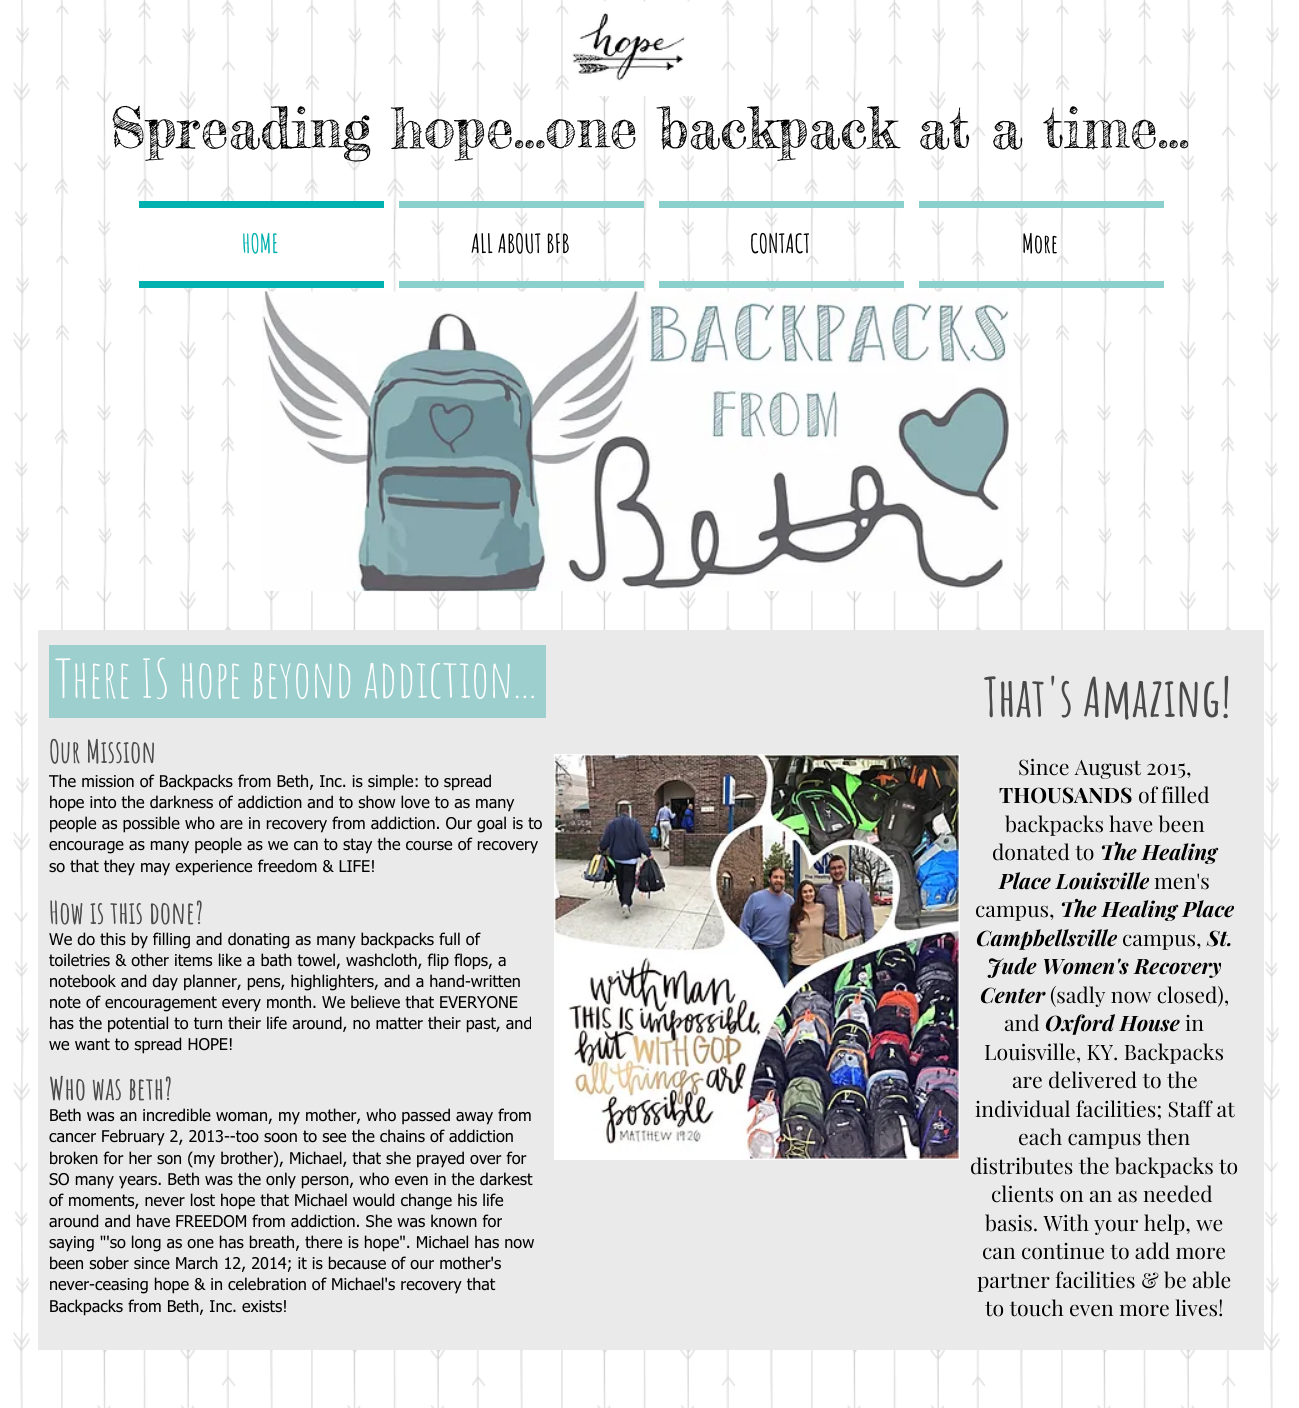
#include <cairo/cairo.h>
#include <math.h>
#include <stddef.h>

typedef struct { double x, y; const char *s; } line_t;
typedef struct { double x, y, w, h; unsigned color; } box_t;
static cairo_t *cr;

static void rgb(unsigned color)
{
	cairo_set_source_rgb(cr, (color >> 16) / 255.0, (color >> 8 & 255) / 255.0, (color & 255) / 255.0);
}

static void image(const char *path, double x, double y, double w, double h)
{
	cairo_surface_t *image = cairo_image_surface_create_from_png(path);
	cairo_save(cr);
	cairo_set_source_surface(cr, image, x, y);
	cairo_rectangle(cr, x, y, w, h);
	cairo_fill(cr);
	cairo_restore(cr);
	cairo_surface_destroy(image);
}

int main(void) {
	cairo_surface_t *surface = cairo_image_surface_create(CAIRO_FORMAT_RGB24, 1299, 1408);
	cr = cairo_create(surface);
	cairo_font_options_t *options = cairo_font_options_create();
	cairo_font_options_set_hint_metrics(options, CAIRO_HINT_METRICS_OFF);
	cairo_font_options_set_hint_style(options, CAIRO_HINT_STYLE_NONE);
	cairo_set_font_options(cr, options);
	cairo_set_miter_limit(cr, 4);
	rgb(0xffffff);
	cairo_paint(cr);
	image("img/1.png", 13, 0, 1267, 1408);
	image("img/2.png", 568, 1, 128, 95);
	{
		static const box_t items[] = {
			{139, 208, 222, 73, 0xffffff},
			{139, 201, 245, 7, 0x01b1af},
			{139, 281, 245, 7, 0x01b1af},
			{399, 201, 245, 7, 0x8bd0cd},
			{399, 281, 245, 7, 0x8bd0cd},
			{659, 201, 245, 7, 0x8bd0cd},
			{659, 281, 245, 7, 0x8bd0cd},
			{919, 201, 245, 7, 0x8bd0cd},
			{919, 281, 245, 7, 0x8bd0cd},
		};
		for (size_t i = 0; i < sizeof items / sizeof *items; i++) {
			rgb(items[i].color);
			cairo_rectangle(cr, items[i].x, items[i].y, items[i].w, items[i].h);
			cairo_fill(cr);
		}
	}
	image("img/3.png", 262, 291, 747, 301);
	rgb(0xeaeaea);
	cairo_rectangle(cr, 38, 630, 1226, 720);
	cairo_fill(cr);
	rgb(0x9dcfcf);
	cairo_rectangle(cr, 49, 645, 497, 73);
	cairo_fill(cr);
	image("img/4.png", 554, 754, 406, 406);
	cairo_select_font_face(cr, "Fredericka the Great", CAIRO_FONT_SLANT_NORMAL, CAIRO_FONT_WEIGHT_NORMAL);
	cairo_set_font_size(cr, 56.25);
	rgb(0x000000);
	cairo_move_to(cr, 110, 148);
	cairo_show_text(cr, "Spreading hope...one backpack at a time...");
	cairo_select_font_face(cr, "Amatic SC", CAIRO_FONT_SLANT_NORMAL, CAIRO_FONT_WEIGHT_BOLD);
	cairo_set_font_size(cr, 26);
	rgb(0x01b1af);
	cairo_move_to(cr, 242, 253);
	cairo_show_text(cr, "HOME");
	rgb(0x000000);
	{
		static const line_t items[] = {
			{471, 253, "ALL ABOUT BFB"},
			{750, 253, "CONTACT"},
			{1022, 253, "More"},
		};
		for (size_t i = 0; i < sizeof items / sizeof *items; i++) {
			cairo_move_to(cr, items[i].x, items[i].y);
			cairo_show_text(cr, items[i].s);
		}
	}
	cairo_select_font_face(cr, "Amatic SC", CAIRO_FONT_SLANT_NORMAL, CAIRO_FONT_WEIGHT_NORMAL);
	cairo_set_font_size(cr, 52.5);
	rgb(0xffffff);
	cairo_move_to(cr, 55, 698);
	cairo_show_text(cr, "There IS hope beyond addiction...");
	cairo_select_font_face(cr, "Amatic SC", CAIRO_FONT_SLANT_NORMAL, CAIRO_FONT_WEIGHT_BOLD);
	cairo_set_font_size(cr, 53.75);
	rgb(0x4a4a4a);
	cairo_move_to(cr, 984, 717);
	cairo_show_text(cr, "That's Amazing!");
	cairo_select_font_face(cr, "Playfair Display", CAIRO_FONT_SLANT_NORMAL, CAIRO_FONT_WEIGHT_NORMAL);
	cairo_set_font_size(cr, 21.25);
	rgb(0x000000);
	cairo_move_to(cr, 1018, 775);
	cairo_show_text(cr, "Since August 2015,");
	cairo_select_font_face(cr, "Playfair Display", CAIRO_FONT_SLANT_NORMAL, CAIRO_FONT_WEIGHT_BOLD);
	cairo_move_to(cr, 999, 803);
	cairo_show_text(cr, "THOUSANDS");
	cairo_select_font_face(cr, "Playfair Display", CAIRO_FONT_SLANT_NORMAL, CAIRO_FONT_WEIGHT_NORMAL);
	{
		static const line_t items[] = {
			{1138, 803, "of"},
			{1161, 803, "filled"},
			{1005, 832, "backpacks"},
			{1109, 832, "have been"},
			{992, 860, "donated to"},
		};
		for (size_t i = 0; i < sizeof items / sizeof *items; i++) {
			cairo_move_to(cr, items[i].x, items[i].y);
			cairo_show_text(cr, items[i].s);
		}
	}
	cairo_select_font_face(cr, "Playfair Display", CAIRO_FONT_SLANT_ITALIC, CAIRO_FONT_WEIGHT_BOLD);
	cairo_move_to(cr, 1100, 860);
	cairo_show_text(cr, "The Healing");
	cairo_move_to(cr, 999, 889);
	cairo_show_text(cr, "Place Louisville");
	cairo_select_font_face(cr, "Playfair Display", CAIRO_FONT_SLANT_NORMAL, CAIRO_FONT_WEIGHT_NORMAL);
	cairo_move_to(cr, 1154, 889);
	cairo_show_text(cr, "men's");
	cairo_move_to(cr, 975, 917);
	cairo_show_text(cr, "campus,");
	cairo_select_font_face(cr, "Playfair Display", CAIRO_FONT_SLANT_ITALIC, CAIRO_FONT_WEIGHT_BOLD);
	cairo_move_to(cr, 1060, 917);
	cairo_show_text(cr, "The Healing Place");
	cairo_move_to(cr, 976, 946);
	cairo_show_text(cr, "Campbellsville");
	cairo_select_font_face(cr, "Playfair Display", CAIRO_FONT_SLANT_NORMAL, CAIRO_FONT_WEIGHT_NORMAL);
	cairo_move_to(cr, 1122, 946);
	cairo_show_text(cr, "campus,");
	cairo_select_font_face(cr, "Playfair Display", CAIRO_FONT_SLANT_ITALIC, CAIRO_FONT_WEIGHT_BOLD);
	{
		static const line_t items[] = {
			{1207, 946, "St."},
			{987, 974, "Jude Women's Recovery"},
			{980, 1003, "Center"},
		};
		for (size_t i = 0; i < sizeof items / sizeof *items; i++) {
			cairo_move_to(cr, items[i].x, items[i].y);
			cairo_show_text(cr, items[i].s);
		}
	}
	cairo_select_font_face(cr, "Playfair Display", CAIRO_FONT_SLANT_NORMAL, CAIRO_FONT_WEIGHT_NORMAL);
	cairo_move_to(cr, 1050, 1003);
	cairo_show_text(cr, "(sadly now closed),");
	cairo_move_to(cr, 1004, 1031);
	cairo_show_text(cr, "and");
	cairo_select_font_face(cr, "Playfair Display", CAIRO_FONT_SLANT_ITALIC, CAIRO_FONT_WEIGHT_BOLD);
	cairo_move_to(cr, 1045, 1031);
	cairo_show_text(cr, "Oxford House");
	cairo_select_font_face(cr, "Playfair Display", CAIRO_FONT_SLANT_NORMAL, CAIRO_FONT_WEIGHT_NORMAL);
	{
		static const line_t items[] = {
			{1185, 1031, "in"},
			{984, 1060, "Louisville, KY. Backpacks"},
			{1012, 1088, "are delivered to the"},
			{975, 1117, "individual facilities; Staff at"},
			{1018, 1145, "each campus then"},
			{970, 1174, "distributes the backpacks to"},
			{991, 1202, "clients on an as needed"},
			{985, 1231, "basis. With your help, we"},
			{982, 1259, "can continue to add more"},
			{977, 1288, "partner facilities & be able"},
			{985, 1316, "to touch even more lives!"},
		};
		for (size_t i = 0; i < sizeof items / sizeof *items; i++) {
			cairo_move_to(cr, items[i].x, items[i].y);
			cairo_show_text(cr, items[i].s);
		}
	}
	cairo_select_font_face(cr, "Amatic SC", CAIRO_FONT_SLANT_NORMAL, CAIRO_FONT_WEIGHT_BOLD);
	cairo_set_font_size(cr, 31.25);
	rgb(0x4a4a4a);
	cairo_move_to(cr, 49, 763);
	cairo_show_text(cr, "Our Mission");
	cairo_select_font_face(cr, "tahoma", CAIRO_FONT_SLANT_NORMAL, CAIRO_FONT_WEIGHT_NORMAL);
	cairo_set_font_size(cr, 16.25);
	rgb(0x000000);
	{
		static const line_t items[] = {
			{49, 787, "The mission of Backpacks from Beth, Inc. is simple: to spread"},
			{49, 808, "hope into the darkness of addiction and to show love to as many"},
			{49, 829, "people as possible who are in recovery from addiction. Our goal is to"},
			{49, 850, "encourage as many people as we can to stay the course of recovery"},
			{49, 872, "so that they may experience freedom & LIFE!"},
		};
		for (size_t i = 0; i < sizeof items / sizeof *items; i++) {
			cairo_move_to(cr, items[i].x, items[i].y);
			cairo_show_text(cr, items[i].s);
		}
	}
	cairo_select_font_face(cr, "Amatic SC", CAIRO_FONT_SLANT_NORMAL, CAIRO_FONT_WEIGHT_BOLD);
	cairo_set_font_size(cr, 31.25);
	rgb(0x4a4a4a);
	cairo_move_to(cr, 49, 924);
	cairo_show_text(cr, "How is this done?");
	cairo_select_font_face(cr, "tahoma", CAIRO_FONT_SLANT_NORMAL, CAIRO_FONT_WEIGHT_NORMAL);
	cairo_set_font_size(cr, 16.25);
	rgb(0x000000);
	{
		static const line_t items[] = {
			{49, 945, "We do this by filling and donating as many backpacks full of"},
			{49, 966, "toiletries & other items like a bath towel, washcloth, flip flops, a"},
			{49, 987, "notebook and day planner, pens, highlighters, and a hand-written"},
			{49, 1008, "note of encouragement every month. We believe that EVERYONE"},
			{49, 1029, "has the potential to turn their life around, no matter their past, and"},
			{49, 1050, "we want to spread HOPE!"},
		};
		for (size_t i = 0; i < sizeof items / sizeof *items; i++) {
			cairo_move_to(cr, items[i].x, items[i].y);
			cairo_show_text(cr, items[i].s);
		}
	}
	cairo_select_font_face(cr, "Amatic SC", CAIRO_FONT_SLANT_NORMAL, CAIRO_FONT_WEIGHT_BOLD);
	cairo_set_font_size(cr, 31.25);
	rgb(0x4a4a4a);
	cairo_move_to(cr, 49, 1100);
	cairo_show_text(cr, "Who was beth?");
	cairo_select_font_face(cr, "tahoma", CAIRO_FONT_SLANT_NORMAL, CAIRO_FONT_WEIGHT_NORMAL);
	cairo_set_font_size(cr, 16.25);
	rgb(0x000000);
	{
		static const line_t items[] = {
			{49, 1121, "Beth was an incredible woman, my mother, who passed away from"},
			{49, 1142, "cancer February 2, 2013--too soon to see the chains of addiction"},
			{49, 1164, "broken for her son (my brother), Michael, that she prayed over for"},
			{49, 1185, "SO many years. Beth was the only person, who even in the darkest"},
			{49, 1206, "of moments, never lost hope that Michael would change his life"},
			{49, 1227, "around and have FREEDOM from addiction. She was known for"},
			{49, 1248, "saying \"'so long as one has breath, there is hope\". Michael has now"},
			{49, 1269, "been sober since March 12, 2014; it is because of our mother's"},
			{49, 1290, "never-ceasing hope & in celebration of Michael's recovery that"},
			{49, 1312, "Backpacks from Beth, Inc. exists!"},
		};
		for (size_t i = 0; i < sizeof items / sizeof *items; i++) {
			cairo_move_to(cr, items[i].x, items[i].y);
			cairo_show_text(cr, items[i].s);
		}
	}
	cairo_surface_write_to_png(surface, "page.png");
	cairo_font_options_destroy(options);
	cairo_destroy(cr);
	cairo_surface_destroy(surface);
	return 0;
}
